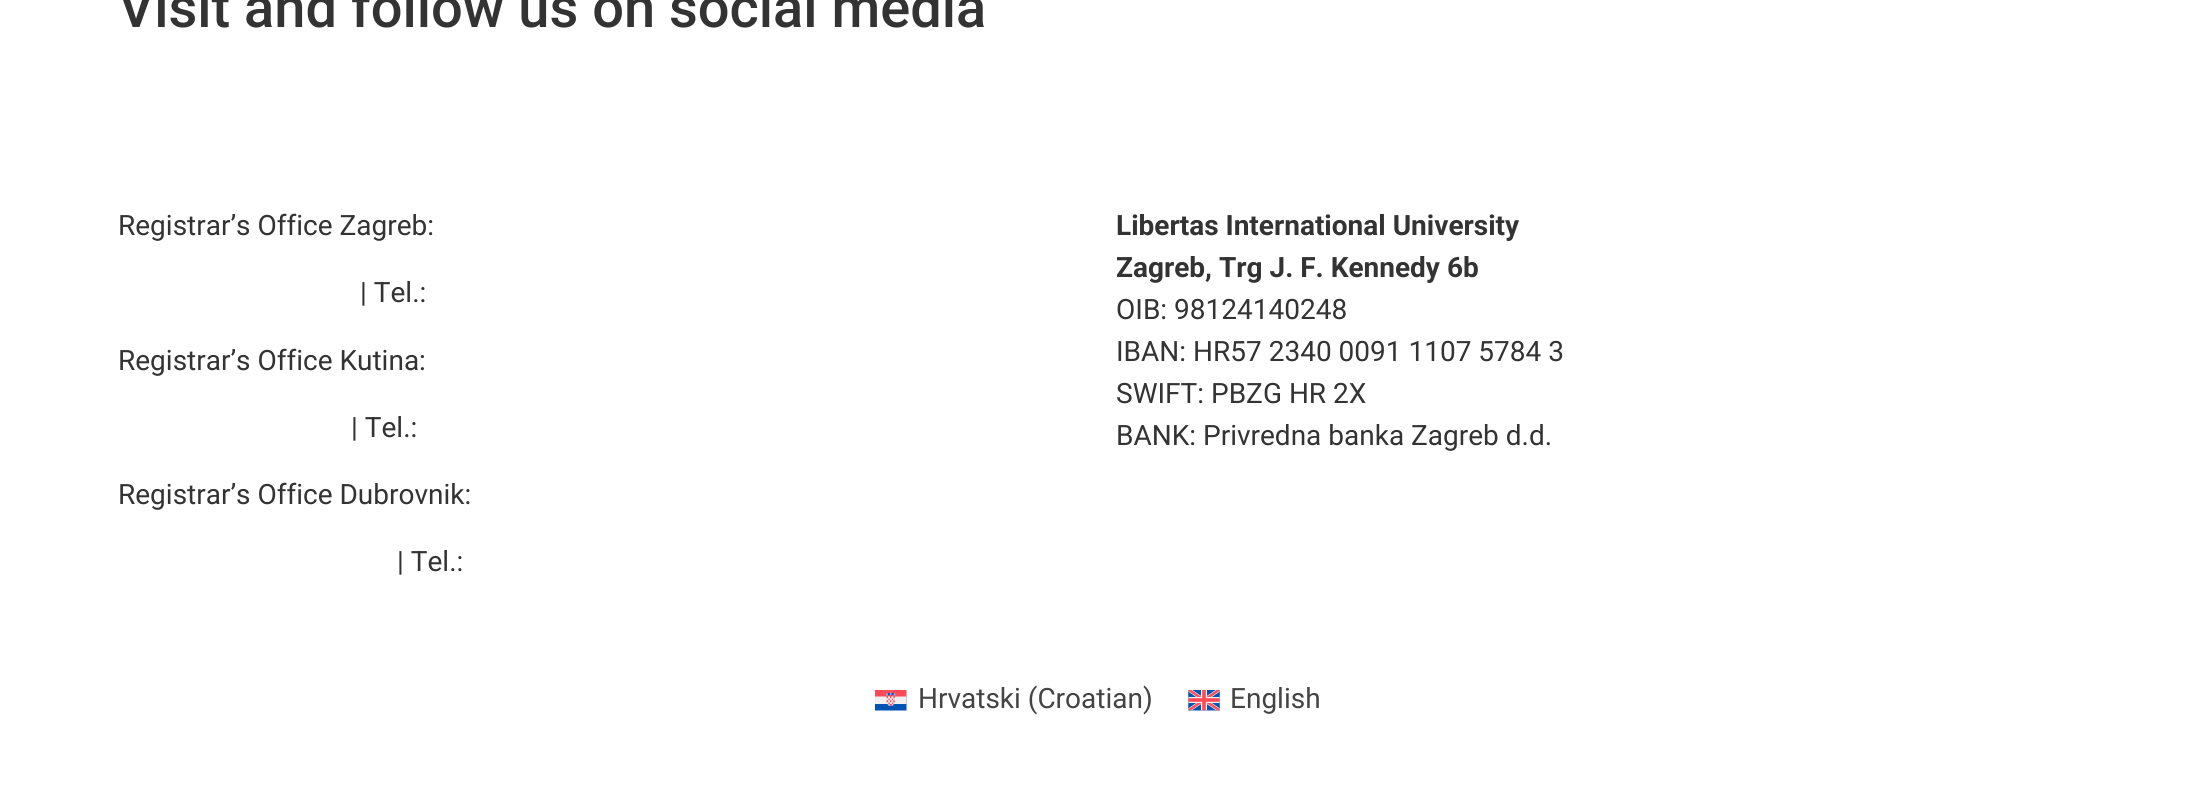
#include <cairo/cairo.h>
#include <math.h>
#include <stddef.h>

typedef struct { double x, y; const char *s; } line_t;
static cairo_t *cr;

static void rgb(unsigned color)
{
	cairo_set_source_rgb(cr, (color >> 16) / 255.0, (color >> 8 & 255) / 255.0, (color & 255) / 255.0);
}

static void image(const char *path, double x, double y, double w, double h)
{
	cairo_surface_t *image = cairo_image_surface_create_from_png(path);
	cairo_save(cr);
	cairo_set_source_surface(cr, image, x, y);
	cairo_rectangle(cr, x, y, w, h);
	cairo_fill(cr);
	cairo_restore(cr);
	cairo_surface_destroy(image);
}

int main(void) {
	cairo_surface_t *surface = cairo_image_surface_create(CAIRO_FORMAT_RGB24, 2196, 790);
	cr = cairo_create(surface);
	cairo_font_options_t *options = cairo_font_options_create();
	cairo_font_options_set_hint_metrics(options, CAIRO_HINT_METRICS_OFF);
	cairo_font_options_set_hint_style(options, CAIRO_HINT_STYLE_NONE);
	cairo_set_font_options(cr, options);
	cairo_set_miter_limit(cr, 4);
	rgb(0xffffff);
	cairo_paint(cr);
	image("img/1.png", 875, 690, 32, 21);
	image("img/2.png", 1188, 690, 32, 21);
	cairo_select_font_face(cr, "Roboto Medium", CAIRO_FONT_SLANT_NORMAL, CAIRO_FONT_WEIGHT_NORMAL);
	cairo_set_font_size(cr, 56);
	rgb(0x333333);
	cairo_move_to(cr, 118, 27);
	cairo_show_text(cr, "Visit and follow us on social media");
	cairo_select_font_face(cr, "Roboto", CAIRO_FONT_SLANT_NORMAL, CAIRO_FONT_WEIGHT_NORMAL);
	cairo_set_font_size(cr, 28);
	{
		static const line_t items[] = {
			{118, 235, "Registrar’s Office Zagreb:"},
			{360, 302, "| Tel.:"},
			{118, 370, "Registrar’s Office Kutina:"},
			{351, 437, "| Tel.:"},
			{118, 504, "Registrar’s Office Dubrovnik:"},
			{397, 571, "| Tel.:"},
		};
		for (size_t i = 0; i < sizeof items / sizeof *items; i++) {
			cairo_move_to(cr, items[i].x, items[i].y);
			cairo_show_text(cr, items[i].s);
		}
	}
	cairo_select_font_face(cr, "Roboto", CAIRO_FONT_SLANT_NORMAL, CAIRO_FONT_WEIGHT_BOLD);
	cairo_move_to(cr, 1116, 235);
	cairo_show_text(cr, "Libertas International University");
	cairo_move_to(cr, 1116, 277);
	cairo_show_text(cr, "Zagreb, Trg J. F. Kennedy 6b");
	cairo_select_font_face(cr, "Roboto", CAIRO_FONT_SLANT_NORMAL, CAIRO_FONT_WEIGHT_NORMAL);
	{
		static const line_t items[] = {
			{1116, 319, "OIB: 98124140248"},
			{1116, 361, "IBAN: HR57 2340 0091 1107 5784 3"},
			{1116, 403, "SWIFT: PBZG HR 2X"},
			{1116, 445, "BANK: Privredna banka Zagreb d.d."},
		};
		for (size_t i = 0; i < sizeof items / sizeof *items; i++) {
			cairo_move_to(cr, items[i].x, items[i].y);
			cairo_show_text(cr, items[i].s);
		}
	}
	rgb(0x444444);
	cairo_move_to(cr, 918, 708);
	cairo_show_text(cr, "Hrvatski (Croatian)");
	cairo_move_to(cr, 1230, 708);
	cairo_show_text(cr, "English");
	cairo_surface_write_to_png(surface, "page.png");
	cairo_font_options_destroy(options);
	cairo_destroy(cr);
	cairo_surface_destroy(surface);
	return 0;
}
